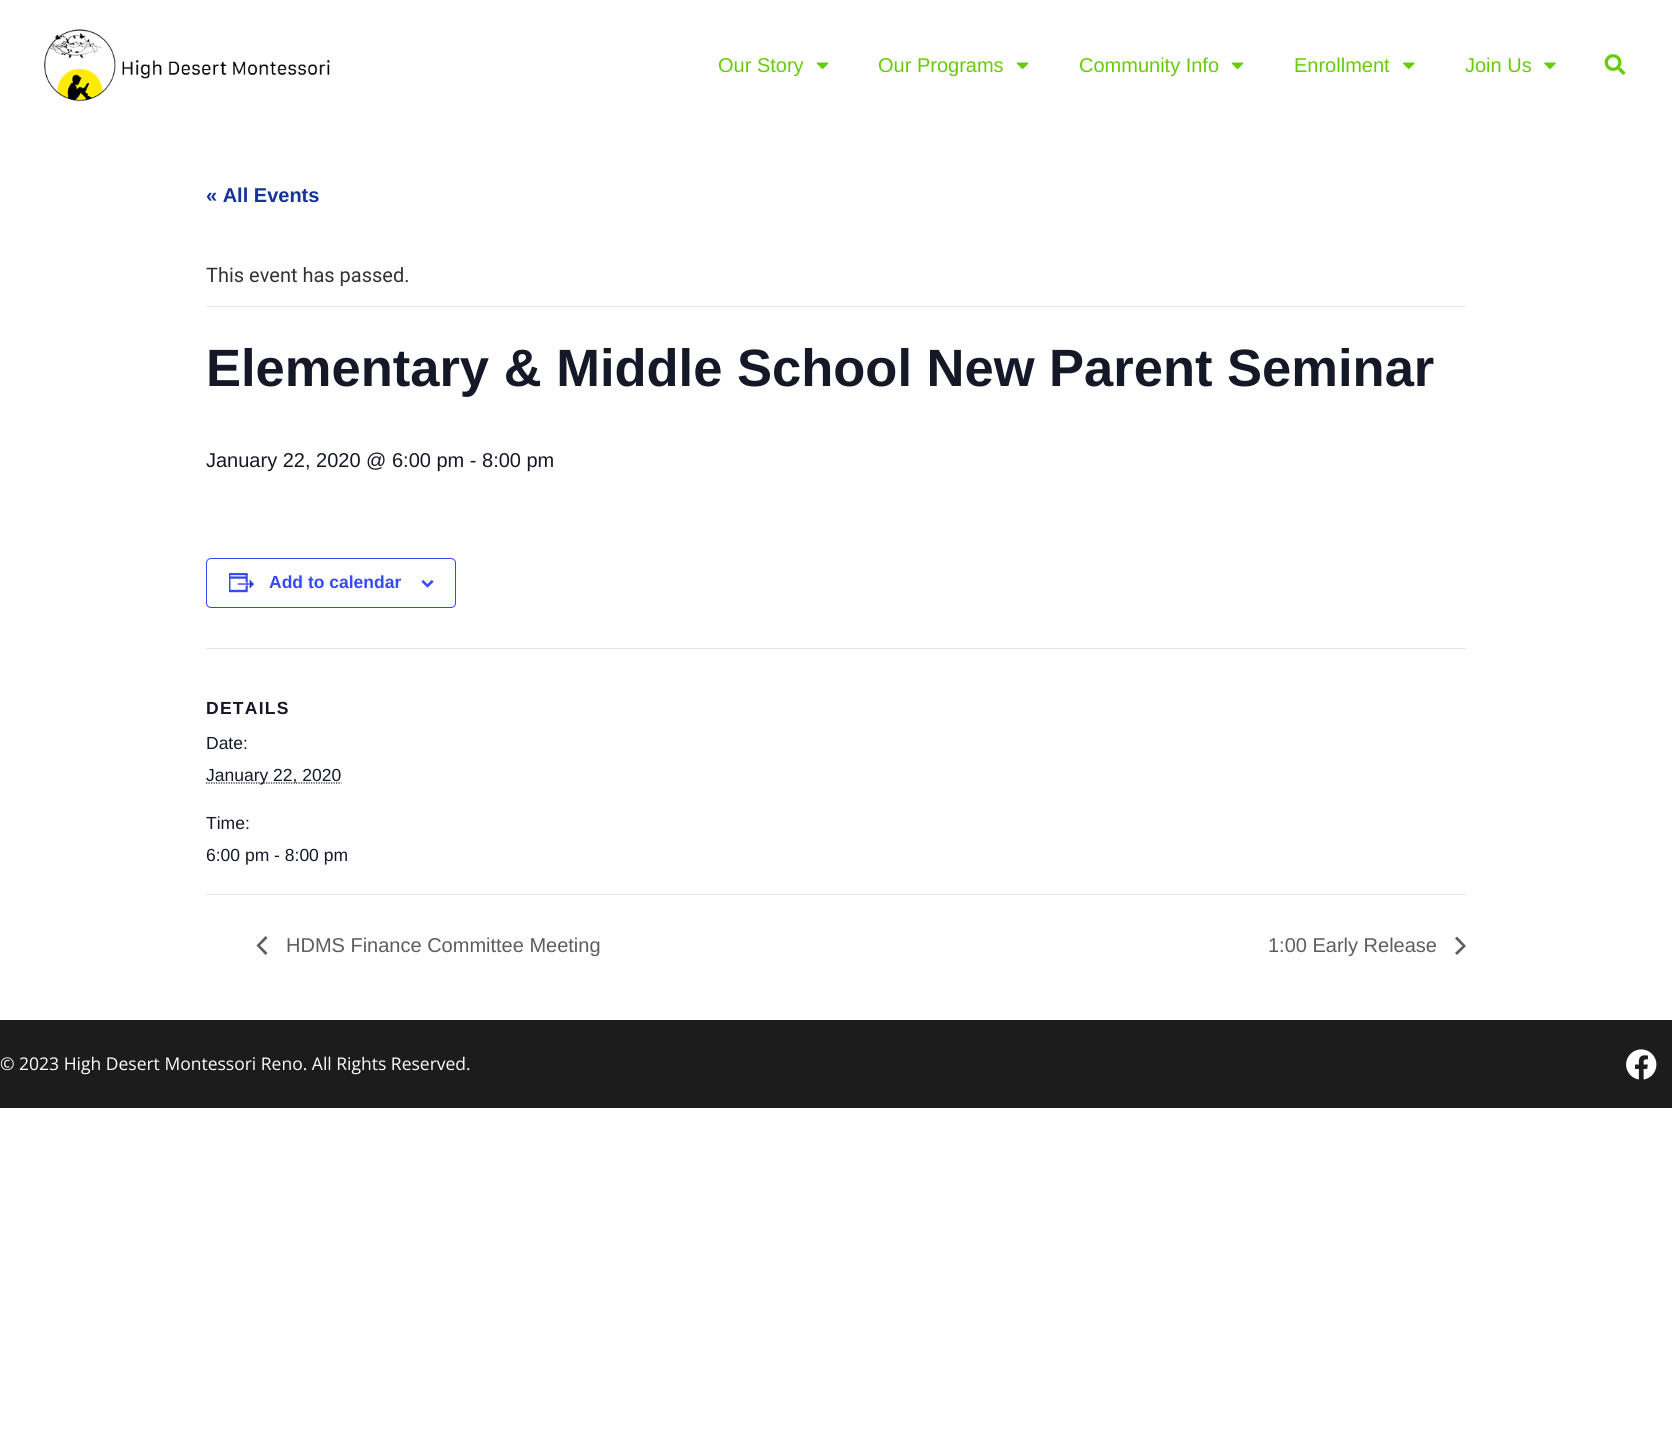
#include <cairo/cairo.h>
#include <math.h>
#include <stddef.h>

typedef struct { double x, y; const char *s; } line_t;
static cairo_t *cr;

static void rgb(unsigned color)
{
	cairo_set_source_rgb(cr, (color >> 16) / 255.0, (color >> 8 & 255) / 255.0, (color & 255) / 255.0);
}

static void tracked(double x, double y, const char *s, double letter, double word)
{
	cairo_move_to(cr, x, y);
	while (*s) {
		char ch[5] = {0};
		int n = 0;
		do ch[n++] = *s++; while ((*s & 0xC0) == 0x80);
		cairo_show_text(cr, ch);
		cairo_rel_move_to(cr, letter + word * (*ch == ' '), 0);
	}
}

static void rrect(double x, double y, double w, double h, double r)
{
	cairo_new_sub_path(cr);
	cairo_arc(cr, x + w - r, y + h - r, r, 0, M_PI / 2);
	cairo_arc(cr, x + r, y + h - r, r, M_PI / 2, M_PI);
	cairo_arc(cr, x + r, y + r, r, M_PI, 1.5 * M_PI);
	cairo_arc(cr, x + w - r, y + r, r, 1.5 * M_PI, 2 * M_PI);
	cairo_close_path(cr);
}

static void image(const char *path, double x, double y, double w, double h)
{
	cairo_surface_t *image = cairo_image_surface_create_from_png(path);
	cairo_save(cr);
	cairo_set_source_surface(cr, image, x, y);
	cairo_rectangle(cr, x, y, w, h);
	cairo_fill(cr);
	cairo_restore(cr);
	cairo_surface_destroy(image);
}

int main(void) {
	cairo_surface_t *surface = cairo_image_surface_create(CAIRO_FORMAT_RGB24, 1672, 1431);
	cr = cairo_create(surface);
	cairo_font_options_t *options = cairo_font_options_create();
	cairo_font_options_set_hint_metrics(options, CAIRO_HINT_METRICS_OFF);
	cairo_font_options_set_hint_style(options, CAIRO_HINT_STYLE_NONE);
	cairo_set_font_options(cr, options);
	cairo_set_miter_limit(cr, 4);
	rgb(0xffffff);
	cairo_paint(cr);
	image("img/1.png", 44, 29, 286, 73);
	image("img/2.png", 816, 62, 13, 8);
	image("img/2.png", 1016, 62, 13, 8);
	image("img/2.png", 1231, 62, 13, 8);
	image("img/3.png", 1403, 62, 12, 8);
	image("img/4.png", 1544, 62, 12, 7);
	image("img/5.png", 1604, 54, 22, 21);
	rgb(0xe4e4e4);
	cairo_rectangle(cr, 206, 306, 1260, 1);
	cairo_fill(cr);
	rrect(206.5, 558.5, 249, 49, 4.5);
	rgb(0x334aff);
	cairo_set_line_width(cr, 1);
	cairo_stroke(cr);
	image("img/6.png", 229, 573, 25, 20);
	image("img/7.png", 421, 580, 13, 8);
	rgb(0xe4e4e4);
	cairo_rectangle(cr, 206, 648, 1260, 1);
	cairo_fill(cr);
	cairo_new_path(cr);
	cairo_move_to(cr, 206, 783);
	cairo_line_to(cr, 341.5, 783);
	rgb(0x141827);
	cairo_set_line_width(cr, 1.2);
	cairo_set_dash(cr, (double[]){1.25, 1.25}, 2, 0);
	cairo_stroke(cr);
	rgb(0xe4e4e4);
	cairo_rectangle(cr, 206, 894, 1260, 1);
	cairo_fill(cr);
	rgb(0x5d5d5d);
	cairo_new_path(cr);
	cairo_move_to(cr, 267.5, 953);
	cairo_line_to(cr, 265.5, 955);
	cairo_line_to(cr, 256.5, 945.5);
	cairo_line_to(cr, 265.5, 936);
	cairo_line_to(cr, 267.5, 938);
	cairo_line_to(cr, 260, 945.5);
	cairo_close_path(cr);
	cairo_fill(cr);
	cairo_new_path(cr);
	cairo_move_to(cr, 1455, 938.5);
	cairo_line_to(cr, 1457, 936.5);
	cairo_line_to(cr, 1466, 946);
	cairo_line_to(cr, 1457, 955);
	cairo_line_to(cr, 1455, 953);
	cairo_line_to(cr, 1462.5, 946);
	cairo_close_path(cr);
	cairo_fill(cr);
	rgb(0x1c1c1c);
	cairo_rectangle(cr, 0, 1020, 1672, 88);
	cairo_fill(cr);
	image("img/8.png", 1626, 1049, 31, 31);
	cairo_select_font_face(cr, "Liberation Sans", CAIRO_FONT_SLANT_NORMAL, CAIRO_FONT_WEIGHT_NORMAL);
	cairo_set_font_size(cr, 20);
	rgb(0x65cc06);
	{
		static const line_t items[] = {
			{718, 72, "Our Story"},
			{878, 72, "Our Programs"},
			{1079, 72, "Community Info"},
			{1294, 72, "Enrollment"},
			{1465, 72, "Join Us"},
		};
		for (size_t i = 0; i < sizeof items / sizeof *items; i++) {
			cairo_move_to(cr, items[i].x, items[i].y);
			cairo_show_text(cr, items[i].s);
		}
	}
	cairo_select_font_face(cr, "Liberation Sans", CAIRO_FONT_SLANT_NORMAL, CAIRO_FONT_WEIGHT_BOLD);
	rgb(0x153499);
	cairo_move_to(cr, 206, 202);
	cairo_show_text(cr, "« All Events");
	cairo_select_font_face(cr, "Roboto", CAIRO_FONT_SLANT_NORMAL, CAIRO_FONT_WEIGHT_NORMAL);
	rgb(0x333333);
	cairo_move_to(cr, 206, 282);
	cairo_show_text(cr, "This event has passed.");
	cairo_select_font_face(cr, "Liberation Sans", CAIRO_FONT_SLANT_NORMAL, CAIRO_FONT_WEIGHT_BOLD);
	cairo_set_font_size(cr, 52.5);
	rgb(0x141827);
	cairo_move_to(cr, 206, 386);
	cairo_show_text(cr, "Elementary & Middle School New Parent Seminar");
	cairo_select_font_face(cr, "Liberation Sans", CAIRO_FONT_SLANT_NORMAL, CAIRO_FONT_WEIGHT_NORMAL);
	cairo_set_font_size(cr, 20);
	cairo_move_to(cr, 206, 467);
	cairo_show_text(cr, "January 22, 2020 @ 6:00 pm - 8:00 pm");
	cairo_select_font_face(cr, "Liberation Sans", CAIRO_FONT_SLANT_NORMAL, CAIRO_FONT_WEIGHT_BOLD);
	cairo_set_font_size(cr, 17.5);
	rgb(0x334aff);
	cairo_move_to(cr, 269, 588);
	cairo_show_text(cr, "Add to calendar");
	rgb(0x141827);
	tracked(206, 714, "DETAILS", 1.25, 0);
	cairo_select_font_face(cr, "Liberation Sans", CAIRO_FONT_SLANT_NORMAL, CAIRO_FONT_WEIGHT_NORMAL);
	{
		static const line_t items[] = {
			{206, 749, "Date:"},
			{206, 781, "January 22, 2020"},
			{206, 829, "Time:"},
			{206, 861, "6:00 pm - 8:00 pm"},
		};
		for (size_t i = 0; i < sizeof items / sizeof *items; i++) {
			cairo_move_to(cr, items[i].x, items[i].y);
			cairo_show_text(cr, items[i].s);
		}
	}
	cairo_set_font_size(cr, 20);
	rgb(0x5d5d5d);
	cairo_move_to(cr, 286, 952);
	cairo_show_text(cr, "HDMS Finance Committee Meeting");
	cairo_move_to(cr, 1268, 952);
	cairo_show_text(cr, "1:00 Early Release");
	cairo_select_font_face(cr, "Open Sans", CAIRO_FONT_SLANT_NORMAL, CAIRO_FONT_WEIGHT_NORMAL);
	cairo_set_font_size(cr, 17.5);
	rgb(0xffffff);
	cairo_move_to(cr, 0, 1070);
	cairo_show_text(cr, "© 2023 High Desert Montessori Reno. All Rights Reserved.");
	cairo_surface_write_to_png(surface, "page.png");
	cairo_font_options_destroy(options);
	cairo_destroy(cr);
	cairo_surface_destroy(surface);
	return 0;
}
